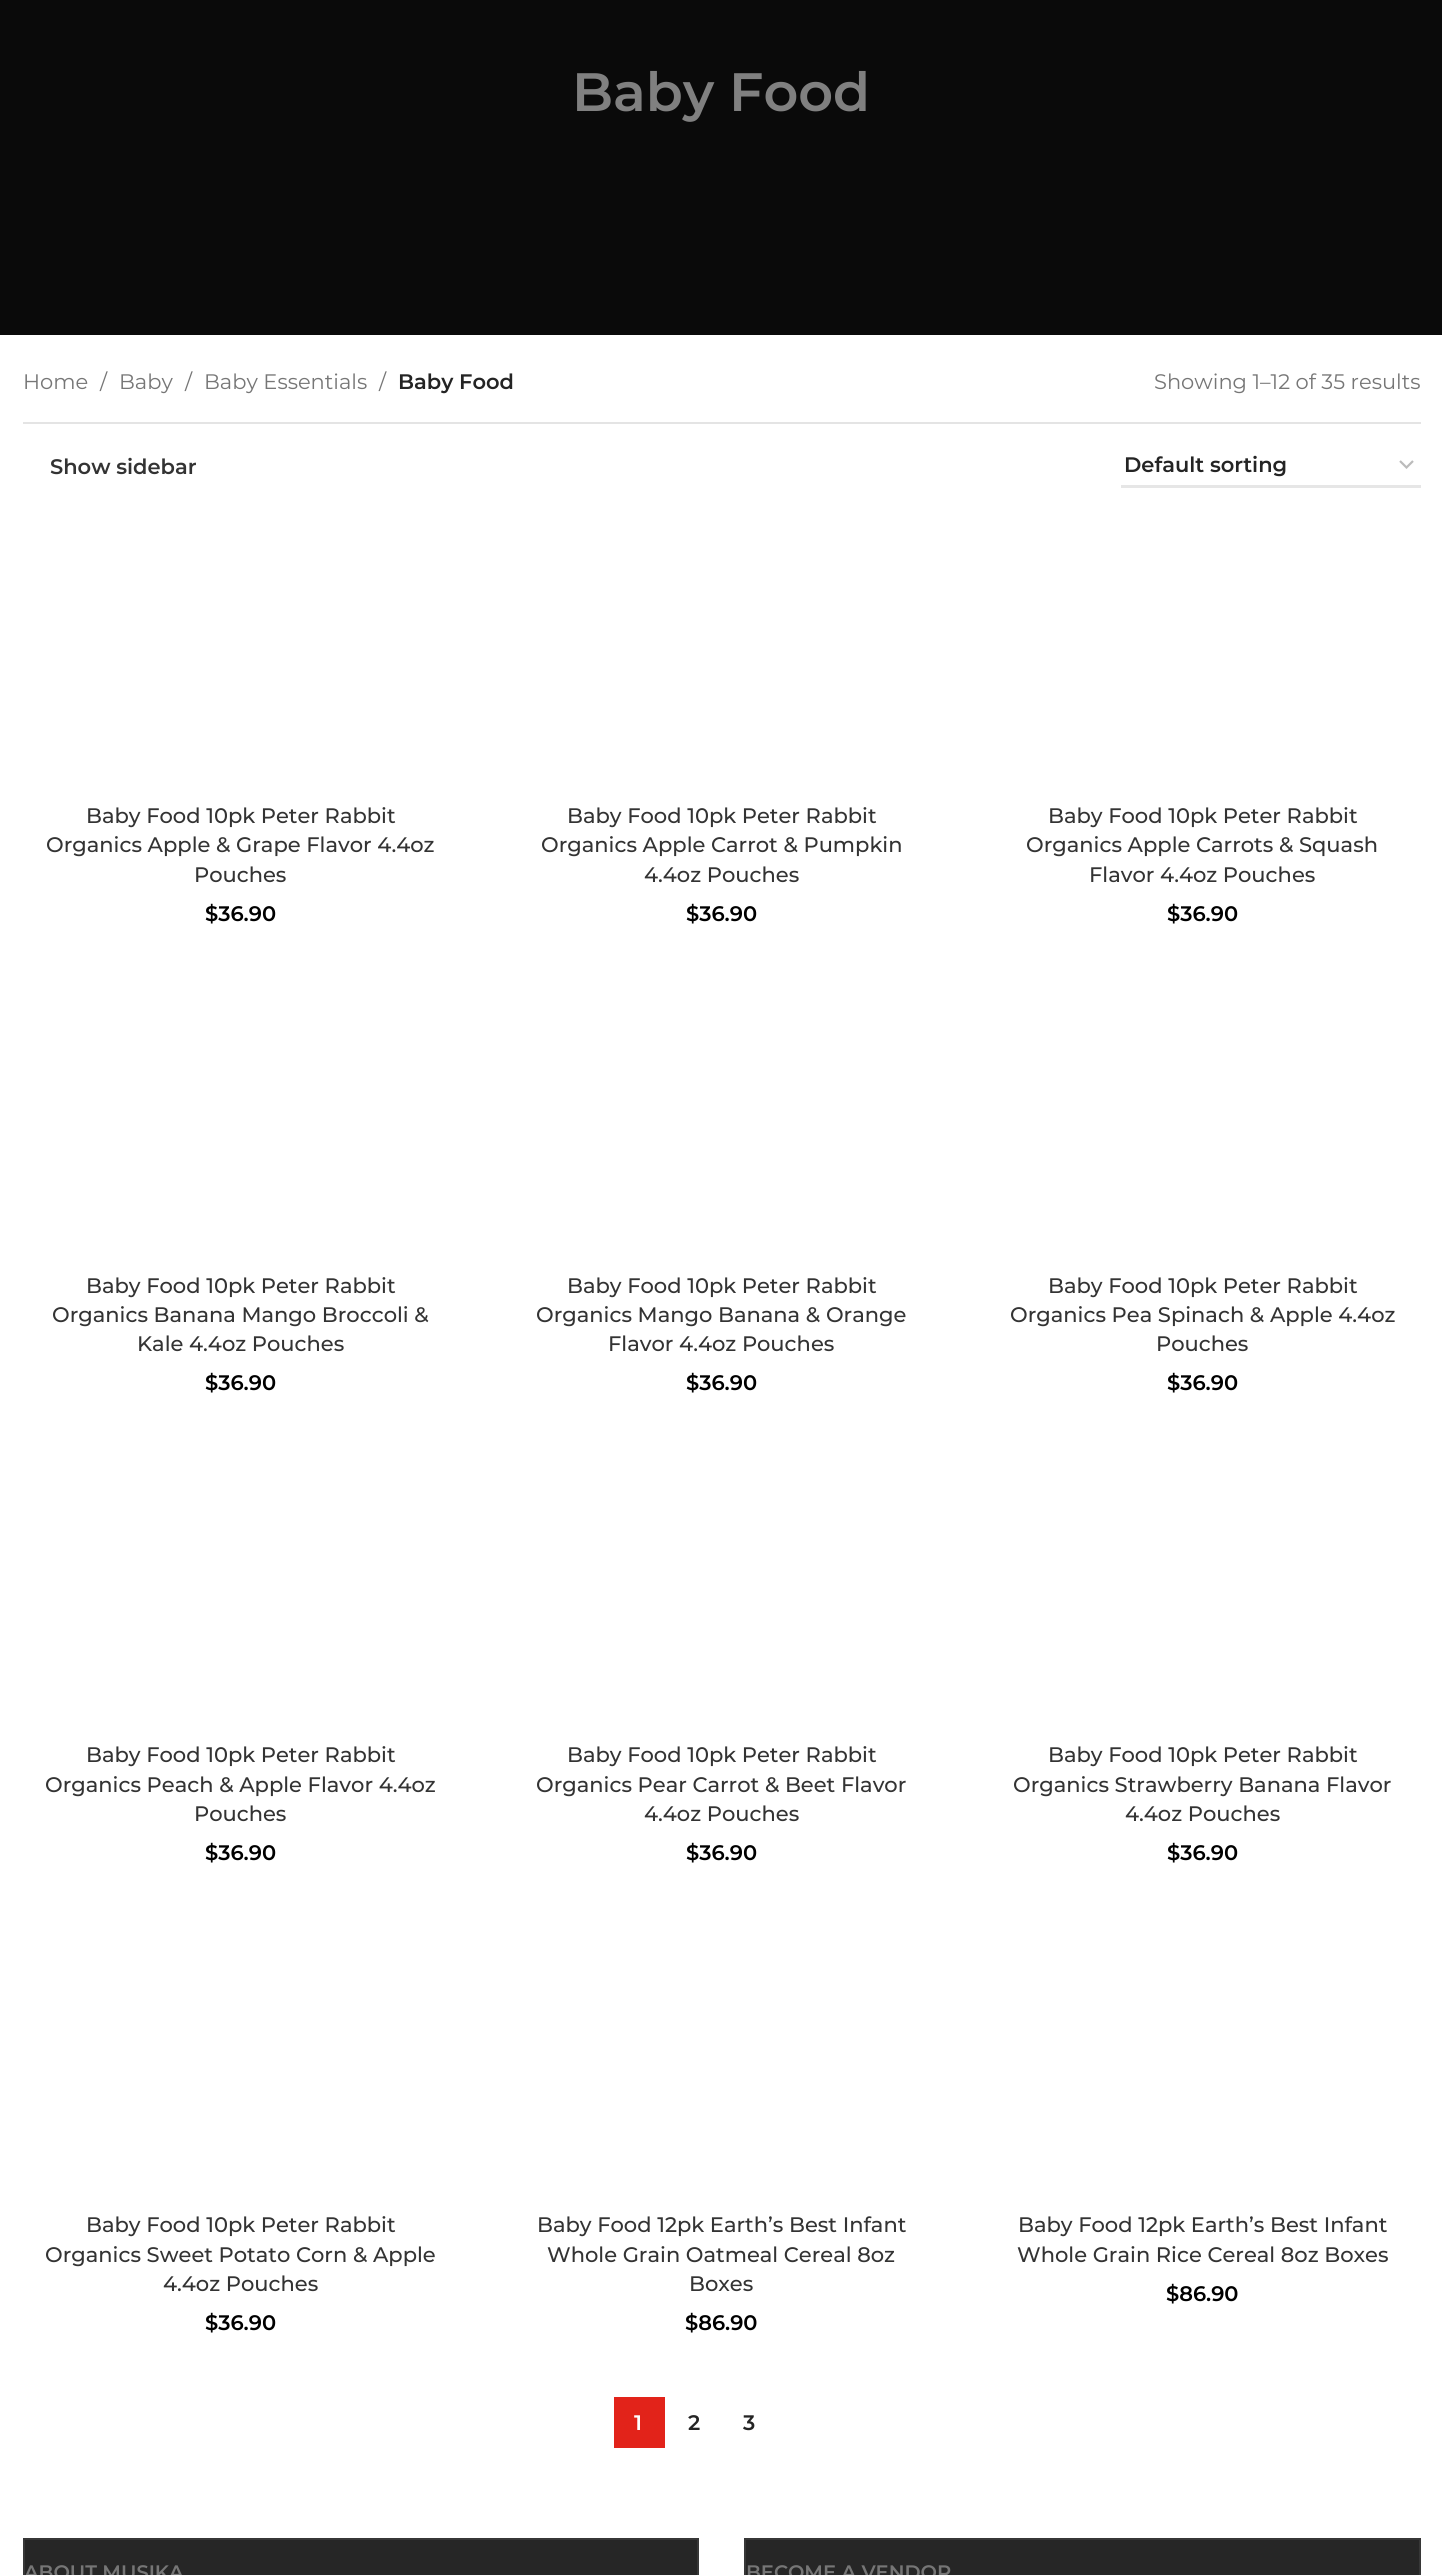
#include <cairo/cairo.h>
#include <math.h>
#include <stddef.h>

typedef struct { double x, y; const char *s; } line_t;
static cairo_t *cr;

static void rgb(unsigned color)
{
	cairo_set_source_rgb(cr, (color >> 16) / 255.0, (color >> 8 & 255) / 255.0, (color & 255) / 255.0);
}

int main(void) {
	cairo_surface_t *surface = cairo_image_surface_create(CAIRO_FORMAT_RGB24, 1442, 2575);
	cr = cairo_create(surface);
	cairo_font_options_t *options = cairo_font_options_create();
	cairo_font_options_set_hint_metrics(options, CAIRO_HINT_METRICS_OFF);
	cairo_font_options_set_hint_style(options, CAIRO_HINT_STYLE_NONE);
	cairo_set_font_options(cr, options);
	cairo_set_miter_limit(cr, 4);
	rgb(0xffffff);
	cairo_paint(cr);
	rgb(0x0a0a0a);
	cairo_rectangle(cr, 0, 0, 1442, 335);
	cairo_fill(cr);
	rgb(0xe4e4e4);
	cairo_rectangle(cr, 23, 422, 1398, 2);
	cairo_fill(cr);
	cairo_new_path(cr);
	cairo_move_to(cr, 1400, 461);
	cairo_line_to(cr, 1406.5, 467.5);
	cairo_line_to(cr, 1413, 461);
	rgb(0xbbbbbb);
	cairo_set_line_width(cr, 2.2);
	cairo_stroke(cr);
	rgb(0xe6e6e6);
	cairo_rectangle(cr, 1121, 485, 300, 3);
	cairo_fill(cr);
	rgb(0xe2231a);
	cairo_rectangle(cr, 614, 2397, 51, 51);
	cairo_fill(cr);
	rgb(0x262626);
	cairo_rectangle(cr, 24, 2539, 674, 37);
	cairo_fill_preserve(cr);
	rgb(0x373737);
	cairo_set_line_width(cr, 2);
	cairo_stroke(cr);
	rgb(0x262626);
	cairo_rectangle(cr, 745, 2539, 675, 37);
	cairo_fill_preserve(cr);
	rgb(0x373737);
	cairo_stroke(cr);
	cairo_select_font_face(cr, "Montserrat SemiBold", CAIRO_FONT_SLANT_NORMAL, CAIRO_FONT_WEIGHT_NORMAL);
	cairo_set_font_size(cr, 54);
	rgb(0x808080);
	cairo_move_to(cr, 572, 111);
	cairo_show_text(cr, "Baby Food");
	cairo_select_font_face(cr, "Montserrat", CAIRO_FONT_SLANT_NORMAL, CAIRO_FONT_WEIGHT_NORMAL);
	cairo_set_font_size(cr, 21);
	rgb(0x767676);
	{
		static const line_t items[] = {
			{23, 389, "Home"},
			{100, 389, "/"},
			{119, 389, "Baby"},
			{185, 389, "/"},
			{204, 389, "Baby Essentials"},
			{379, 389, "/"},
		};
		for (size_t i = 0; i < sizeof items / sizeof *items; i++) {
			cairo_move_to(cr, items[i].x, items[i].y);
			cairo_show_text(cr, items[i].s);
		}
	}
	cairo_select_font_face(cr, "Montserrat SemiBold", CAIRO_FONT_SLANT_NORMAL, CAIRO_FONT_WEIGHT_NORMAL);
	rgb(0x242424);
	cairo_move_to(cr, 398, 389);
	cairo_show_text(cr, "Baby Food");
	cairo_select_font_face(cr, "Montserrat", CAIRO_FONT_SLANT_NORMAL, CAIRO_FONT_WEIGHT_NORMAL);
	rgb(0x767676);
	cairo_move_to(cr, 1154, 389);
	cairo_show_text(cr, "Showing 1–12 of 35 results");
	cairo_select_font_face(cr, "Montserrat SemiBold", CAIRO_FONT_SLANT_NORMAL, CAIRO_FONT_WEIGHT_NORMAL);
	rgb(0x333333);
	cairo_move_to(cr, 50, 474);
	cairo_show_text(cr, "Show sidebar");
	rgb(0x242424);
	cairo_move_to(cr, 1124, 472);
	cairo_show_text(cr, "Default sorting");
	cairo_select_font_face(cr, "Montserrat Medium", CAIRO_FONT_SLANT_NORMAL, CAIRO_FONT_WEIGHT_NORMAL);
	rgb(0x333333);
	{
		static const line_t items[] = {
			{86, 823, "Baby Food 10pk Peter Rabbit"},
			{46, 852, "Organics Apple & Grape Flavor 4.4oz"},
			{194, 882, "Pouches"},
		};
		for (size_t i = 0; i < sizeof items / sizeof *items; i++) {
			cairo_move_to(cr, items[i].x, items[i].y);
			cairo_show_text(cr, items[i].s);
		}
	}
	cairo_select_font_face(cr, "Montserrat SemiBold", CAIRO_FONT_SLANT_NORMAL, CAIRO_FONT_WEIGHT_NORMAL);
	rgb(0x000000);
	cairo_move_to(cr, 205, 921);
	cairo_show_text(cr, "$36.90");
	cairo_select_font_face(cr, "Montserrat Medium", CAIRO_FONT_SLANT_NORMAL, CAIRO_FONT_WEIGHT_NORMAL);
	rgb(0x333333);
	{
		static const line_t items[] = {
			{567, 823, "Baby Food 10pk Peter Rabbit"},
			{541, 852, "Organics Apple Carrot & Pumpkin"},
			{644, 882, "4.4oz Pouches"},
		};
		for (size_t i = 0; i < sizeof items / sizeof *items; i++) {
			cairo_move_to(cr, items[i].x, items[i].y);
			cairo_show_text(cr, items[i].s);
		}
	}
	cairo_select_font_face(cr, "Montserrat SemiBold", CAIRO_FONT_SLANT_NORMAL, CAIRO_FONT_WEIGHT_NORMAL);
	rgb(0x000000);
	cairo_move_to(cr, 686, 921);
	cairo_show_text(cr, "$36.90");
	cairo_select_font_face(cr, "Montserrat Medium", CAIRO_FONT_SLANT_NORMAL, CAIRO_FONT_WEIGHT_NORMAL);
	rgb(0x333333);
	{
		static const line_t items[] = {
			{1048, 823, "Baby Food 10pk Peter Rabbit"},
			{1026, 852, "Organics Apple Carrots & Squash"},
			{1089, 882, "Flavor 4.4oz Pouches"},
		};
		for (size_t i = 0; i < sizeof items / sizeof *items; i++) {
			cairo_move_to(cr, items[i].x, items[i].y);
			cairo_show_text(cr, items[i].s);
		}
	}
	cairo_select_font_face(cr, "Montserrat SemiBold", CAIRO_FONT_SLANT_NORMAL, CAIRO_FONT_WEIGHT_NORMAL);
	rgb(0x000000);
	cairo_move_to(cr, 1167, 921);
	cairo_show_text(cr, "$36.90");
	cairo_select_font_face(cr, "Montserrat Medium", CAIRO_FONT_SLANT_NORMAL, CAIRO_FONT_WEIGHT_NORMAL);
	rgb(0x333333);
	{
		static const line_t items[] = {
			{86, 1293, "Baby Food 10pk Peter Rabbit"},
			{52, 1322, "Organics Banana Mango Broccoli &"},
			{137, 1351, "Kale 4.4oz Pouches"},
		};
		for (size_t i = 0; i < sizeof items / sizeof *items; i++) {
			cairo_move_to(cr, items[i].x, items[i].y);
			cairo_show_text(cr, items[i].s);
		}
	}
	cairo_select_font_face(cr, "Montserrat SemiBold", CAIRO_FONT_SLANT_NORMAL, CAIRO_FONT_WEIGHT_NORMAL);
	rgb(0x000000);
	cairo_move_to(cr, 205, 1390);
	cairo_show_text(cr, "$36.90");
	cairo_select_font_face(cr, "Montserrat Medium", CAIRO_FONT_SLANT_NORMAL, CAIRO_FONT_WEIGHT_NORMAL);
	rgb(0x333333);
	{
		static const line_t items[] = {
			{567, 1293, "Baby Food 10pk Peter Rabbit"},
			{536, 1322, "Organics Mango Banana & Orange"},
			{608, 1351, "Flavor 4.4oz Pouches"},
		};
		for (size_t i = 0; i < sizeof items / sizeof *items; i++) {
			cairo_move_to(cr, items[i].x, items[i].y);
			cairo_show_text(cr, items[i].s);
		}
	}
	cairo_select_font_face(cr, "Montserrat SemiBold", CAIRO_FONT_SLANT_NORMAL, CAIRO_FONT_WEIGHT_NORMAL);
	rgb(0x000000);
	cairo_move_to(cr, 686, 1390);
	cairo_show_text(cr, "$36.90");
	cairo_select_font_face(cr, "Montserrat Medium", CAIRO_FONT_SLANT_NORMAL, CAIRO_FONT_WEIGHT_NORMAL);
	rgb(0x333333);
	{
		static const line_t items[] = {
			{1048, 1293, "Baby Food 10pk Peter Rabbit"},
			{1010, 1322, "Organics Pea Spinach & Apple 4.4oz"},
			{1156, 1351, "Pouches"},
		};
		for (size_t i = 0; i < sizeof items / sizeof *items; i++) {
			cairo_move_to(cr, items[i].x, items[i].y);
			cairo_show_text(cr, items[i].s);
		}
	}
	cairo_select_font_face(cr, "Montserrat SemiBold", CAIRO_FONT_SLANT_NORMAL, CAIRO_FONT_WEIGHT_NORMAL);
	rgb(0x000000);
	cairo_move_to(cr, 1167, 1390);
	cairo_show_text(cr, "$36.90");
	cairo_select_font_face(cr, "Montserrat Medium", CAIRO_FONT_SLANT_NORMAL, CAIRO_FONT_WEIGHT_NORMAL);
	rgb(0x333333);
	{
		static const line_t items[] = {
			{86, 1762, "Baby Food 10pk Peter Rabbit"},
			{45, 1792, "Organics Peach & Apple Flavor 4.4oz"},
			{194, 1821, "Pouches"},
		};
		for (size_t i = 0; i < sizeof items / sizeof *items; i++) {
			cairo_move_to(cr, items[i].x, items[i].y);
			cairo_show_text(cr, items[i].s);
		}
	}
	cairo_select_font_face(cr, "Montserrat SemiBold", CAIRO_FONT_SLANT_NORMAL, CAIRO_FONT_WEIGHT_NORMAL);
	rgb(0x000000);
	cairo_move_to(cr, 205, 1860);
	cairo_show_text(cr, "$36.90");
	cairo_select_font_face(cr, "Montserrat Medium", CAIRO_FONT_SLANT_NORMAL, CAIRO_FONT_WEIGHT_NORMAL);
	rgb(0x333333);
	{
		static const line_t items[] = {
			{567, 1762, "Baby Food 10pk Peter Rabbit"},
			{536, 1792, "Organics Pear Carrot & Beet Flavor"},
			{644, 1821, "4.4oz Pouches"},
		};
		for (size_t i = 0; i < sizeof items / sizeof *items; i++) {
			cairo_move_to(cr, items[i].x, items[i].y);
			cairo_show_text(cr, items[i].s);
		}
	}
	cairo_select_font_face(cr, "Montserrat SemiBold", CAIRO_FONT_SLANT_NORMAL, CAIRO_FONT_WEIGHT_NORMAL);
	rgb(0x000000);
	cairo_move_to(cr, 686, 1860);
	cairo_show_text(cr, "$36.90");
	cairo_select_font_face(cr, "Montserrat Medium", CAIRO_FONT_SLANT_NORMAL, CAIRO_FONT_WEIGHT_NORMAL);
	rgb(0x333333);
	{
		static const line_t items[] = {
			{1048, 1762, "Baby Food 10pk Peter Rabbit"},
			{1013, 1792, "Organics Strawberry Banana Flavor"},
			{1125, 1821, "4.4oz Pouches"},
		};
		for (size_t i = 0; i < sizeof items / sizeof *items; i++) {
			cairo_move_to(cr, items[i].x, items[i].y);
			cairo_show_text(cr, items[i].s);
		}
	}
	cairo_select_font_face(cr, "Montserrat SemiBold", CAIRO_FONT_SLANT_NORMAL, CAIRO_FONT_WEIGHT_NORMAL);
	rgb(0x000000);
	cairo_move_to(cr, 1167, 1860);
	cairo_show_text(cr, "$36.90");
	cairo_select_font_face(cr, "Montserrat Medium", CAIRO_FONT_SLANT_NORMAL, CAIRO_FONT_WEIGHT_NORMAL);
	rgb(0x333333);
	{
		static const line_t items[] = {
			{86, 2232, "Baby Food 10pk Peter Rabbit"},
			{45, 2262, "Organics Sweet Potato Corn & Apple"},
			{163, 2291, "4.4oz Pouches"},
		};
		for (size_t i = 0; i < sizeof items / sizeof *items; i++) {
			cairo_move_to(cr, items[i].x, items[i].y);
			cairo_show_text(cr, items[i].s);
		}
	}
	cairo_select_font_face(cr, "Montserrat SemiBold", CAIRO_FONT_SLANT_NORMAL, CAIRO_FONT_WEIGHT_NORMAL);
	rgb(0x000000);
	cairo_move_to(cr, 205, 2330);
	cairo_show_text(cr, "$36.90");
	cairo_select_font_face(cr, "Montserrat Medium", CAIRO_FONT_SLANT_NORMAL, CAIRO_FONT_WEIGHT_NORMAL);
	rgb(0x333333);
	{
		static const line_t items[] = {
			{537, 2232, "Baby Food 12pk Earth’s Best Infant"},
			{547, 2262, "Whole Grain Oatmeal Cereal 8oz"},
			{689, 2291, "Boxes"},
		};
		for (size_t i = 0; i < sizeof items / sizeof *items; i++) {
			cairo_move_to(cr, items[i].x, items[i].y);
			cairo_show_text(cr, items[i].s);
		}
	}
	cairo_select_font_face(cr, "Montserrat SemiBold", CAIRO_FONT_SLANT_NORMAL, CAIRO_FONT_WEIGHT_NORMAL);
	rgb(0x000000);
	cairo_move_to(cr, 685, 2330);
	cairo_show_text(cr, "$86.90");
	cairo_select_font_face(cr, "Montserrat Medium", CAIRO_FONT_SLANT_NORMAL, CAIRO_FONT_WEIGHT_NORMAL);
	rgb(0x333333);
	cairo_move_to(cr, 1018, 2232);
	cairo_show_text(cr, "Baby Food 12pk Earth’s Best Infant");
	cairo_move_to(cr, 1017, 2262);
	cairo_show_text(cr, "Whole Grain Rice Cereal 8oz Boxes");
	cairo_select_font_face(cr, "Montserrat SemiBold", CAIRO_FONT_SLANT_NORMAL, CAIRO_FONT_WEIGHT_NORMAL);
	rgb(0x000000);
	cairo_move_to(cr, 1166, 2301);
	cairo_show_text(cr, "$86.90");
	rgb(0xffffff);
	cairo_move_to(cr, 634, 2430);
	cairo_show_text(cr, "1");
	rgb(0x242424);
	cairo_move_to(cr, 688, 2430);
	cairo_show_text(cr, "2");
	cairo_move_to(cr, 743, 2430);
	cairo_show_text(cr, "3");
	cairo_set_font_size(cr, 19.5);
	rgb(0x767676);
	cairo_move_to(cr, 24, 2579);
	cairo_show_text(cr, "ABOUT MUSIKA");
	cairo_move_to(cr, 746, 2579);
	cairo_show_text(cr, "BECOME A VENDOR");
	cairo_surface_write_to_png(surface, "page.png");
	cairo_font_options_destroy(options);
	cairo_destroy(cr);
	cairo_surface_destroy(surface);
	return 0;
}
